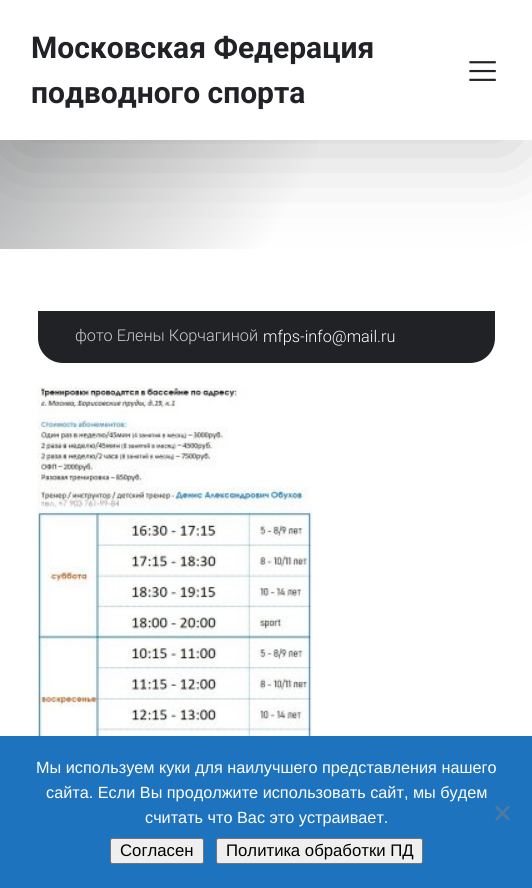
#include <cairo/cairo.h>
#include <math.h>
#include <stddef.h>

typedef struct { double x, y; const char *s; } line_t;
static cairo_t *cr;

static void rgb(unsigned color)
{
	cairo_set_source_rgb(cr, (color >> 16) / 255.0, (color >> 8 & 255) / 255.0, (color & 255) / 255.0);
}

static void rrect(double x, double y, double w, double h, double r)
{
	cairo_new_sub_path(cr);
	cairo_arc(cr, x + w - r, y + h - r, r, 0, M_PI / 2);
	cairo_arc(cr, x + r, y + h - r, r, M_PI / 2, M_PI);
	cairo_arc(cr, x + r, y + r, r, M_PI, 1.5 * M_PI);
	cairo_arc(cr, x + w - r, y + r, r, 1.5 * M_PI, 2 * M_PI);
	cairo_close_path(cr);
}

static void soft_shadow(double x, double y, double w, double h, double r, double blur, double alpha)
{
	cairo_push_group_with_content(cr, CAIRO_CONTENT_ALPHA);
	cairo_set_operator(cr, CAIRO_OPERATOR_SOURCE);
	for (int i = 15; i >= -15 && fmin(w, h) + blur * i / 3 > 0; i -= 2) {
		double e = blur * i / 6;
		cairo_set_source_rgba(cr, 0, 0, 0, alpha * erfc((i - 1) / 8.5) / 2);
		rrect(x - e, y - e, w + 2 * e, h + 2 * e, fmax(0, fmin(r + e + blur * .6, fmin(w, h) / 2 + e)));
		cairo_fill(cr);
	}
	cairo_pattern_t *soft = cairo_pop_group(cr);
	cairo_mask(cr, soft);
	cairo_pattern_destroy(soft);
}

static void image(const char *path, double x, double y, double w, double h)
{
	cairo_surface_t *image = cairo_image_surface_create_from_png(path);
	cairo_save(cr);
	cairo_set_source_surface(cr, image, x, y);
	cairo_rectangle(cr, x, y, w, h);
	cairo_fill(cr);
	cairo_restore(cr);
	cairo_surface_destroy(image);
}

int main(void) {
	cairo_surface_t *surface = cairo_image_surface_create(CAIRO_FORMAT_RGB24, 532, 888);
	cr = cairo_create(surface);
	cairo_font_options_t *options = cairo_font_options_create();
	cairo_font_options_set_hint_metrics(options, CAIRO_HINT_METRICS_OFF);
	cairo_font_options_set_hint_style(options, CAIRO_HINT_STYLE_NONE);
	cairo_set_font_options(cr, options);
	cairo_set_miter_limit(cr, 4);
	cairo_pattern_t *gradient;
	rgb(0xffffff);
	cairo_paint(cr);
	gradient = cairo_pattern_create_linear(-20, -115, 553, 216);
	cairo_pattern_add_color_stop_rgba(gradient, 0, 0.565, 0.569, 0.576, 1);
	cairo_pattern_add_color_stop_rgba(gradient, 0.65, 1, 1, 1, 1);
	cairo_set_source(cr, gradient);
	cairo_pattern_destroy(gradient);
	cairo_rectangle(cr, 0, 140, 318, 109);
	cairo_fill(cr);
	rgb(0x000000);
	soft_shadow(13, 36, 507, 115, 0, 44.5, 0.2);
	rgb(0xffffff);
	cairo_rectangle(cr, 0, 0, 532, 140);
	cairo_fill(cr);
	image("img/1.png", 469, 61, 27, 20);
	rgb(0x202226);
	cairo_new_path(cr);
	cairo_move_to(cr, 38, 311);
	cairo_line_to(cr, 495, 311);
	cairo_line_to(cr, 495, 338);
	cairo_curve_to(cr, 495, 352, 484, 363, 470, 363);
	cairo_line_to(cr, 63, 363);
	cairo_curve_to(cr, 49, 363, 38, 352, 38, 338);
	cairo_close_path(cr);
	cairo_fill(cr);
	image("img/2.png", 37, 387, 275, 349);
	rgb(0x1e73be);
	cairo_rectangle(cr, 0, 736, 532, 152);
	cairo_fill(cr);
	rgb(0x4f7a9f);
	cairo_new_path(cr);
	cairo_move_to(cr, 508, 805.5);
	cairo_line_to(cr, 510, 807.5);
	cairo_line_to(cr, 497, 820.5);
	cairo_line_to(cr, 495, 819);
	cairo_close_path(cr);
	cairo_fill(cr);
	cairo_new_path(cr);
	cairo_move_to(cr, 495, 807.5);
	cairo_line_to(cr, 497, 805.5);
	cairo_line_to(cr, 510, 819);
	cairo_line_to(cr, 508, 820.5);
	cairo_close_path(cr);
	cairo_fill(cr);
	rgb(0xefefef);
	rrect(110.5, 838.5, 93, 25, 2);
	cairo_fill_preserve(cr);
	rgb(0x767676);
	cairo_set_line_width(cr, 1);
	cairo_stroke(cr);
	rgb(0xefefef);
	rrect(216.5, 838.5, 206, 25, 2);
	cairo_fill_preserve(cr);
	rgb(0x767676);
	cairo_stroke(cr);
	cairo_select_font_face(cr, "Roboto", CAIRO_FONT_SLANT_NORMAL, CAIRO_FONT_WEIGHT_BOLD);
	cairo_set_font_size(cr, 30);
	rgb(0x202226);
	cairo_move_to(cr, 31, 58);
	cairo_show_text(cr, "Московская Федерация");
	cairo_move_to(cr, 31, 103);
	cairo_show_text(cr, "подводного спорта");
	cairo_select_font_face(cr, "Roboto Light", CAIRO_FONT_SLANT_NORMAL, CAIRO_FONT_WEIGHT_NORMAL);
	cairo_set_font_size(cr, 16.25);
	rgb(0xcccccc);
	cairo_move_to(cr, 75, 341);
	cairo_show_text(cr, "фото Елены Корчагиной");
	rgb(0xffffff);
	cairo_move_to(cr, 263, 342);
	cairo_show_text(cr, "mfps-info@mail.ru");
	cairo_select_font_face(cr, "Liberation Sans", CAIRO_FONT_SLANT_NORMAL, CAIRO_FONT_WEIGHT_NORMAL);
	{
		static const line_t items[] = {
			{36, 773, "Мы используем куки для наилучшего представления нашего"},
			{46, 798, "сайта. Если Вы продолжите использовать сайт, мы будем"},
			{145, 823, "считать что Вас это устраивает."},
		};
		for (size_t i = 0; i < sizeof items / sizeof *items; i++) {
			cairo_move_to(cr, items[i].x, items[i].y);
			cairo_show_text(cr, items[i].s);
		}
	}
	cairo_set_font_size(cr, 16.75);
	rgb(0x000000);
	cairo_move_to(cr, 120, 856);
	cairo_show_text(cr, "Согласен");
	cairo_move_to(cr, 226, 856);
	cairo_show_text(cr, "Политика обработки ПД");
	cairo_surface_write_to_png(surface, "page.png");
	cairo_font_options_destroy(options);
	cairo_destroy(cr);
	cairo_surface_destroy(surface);
	return 0;
}
